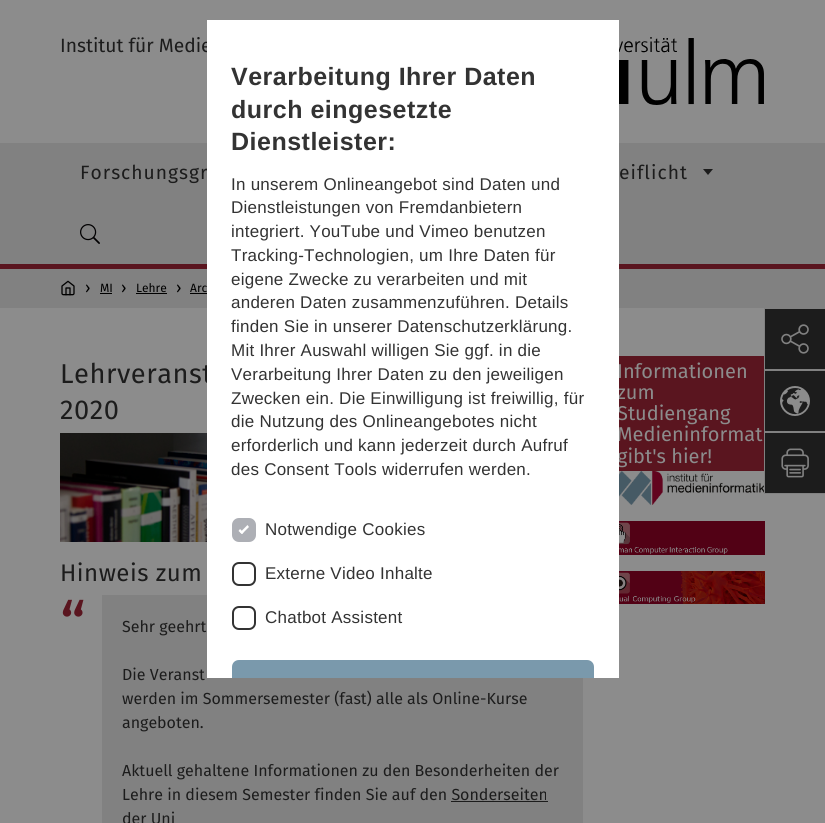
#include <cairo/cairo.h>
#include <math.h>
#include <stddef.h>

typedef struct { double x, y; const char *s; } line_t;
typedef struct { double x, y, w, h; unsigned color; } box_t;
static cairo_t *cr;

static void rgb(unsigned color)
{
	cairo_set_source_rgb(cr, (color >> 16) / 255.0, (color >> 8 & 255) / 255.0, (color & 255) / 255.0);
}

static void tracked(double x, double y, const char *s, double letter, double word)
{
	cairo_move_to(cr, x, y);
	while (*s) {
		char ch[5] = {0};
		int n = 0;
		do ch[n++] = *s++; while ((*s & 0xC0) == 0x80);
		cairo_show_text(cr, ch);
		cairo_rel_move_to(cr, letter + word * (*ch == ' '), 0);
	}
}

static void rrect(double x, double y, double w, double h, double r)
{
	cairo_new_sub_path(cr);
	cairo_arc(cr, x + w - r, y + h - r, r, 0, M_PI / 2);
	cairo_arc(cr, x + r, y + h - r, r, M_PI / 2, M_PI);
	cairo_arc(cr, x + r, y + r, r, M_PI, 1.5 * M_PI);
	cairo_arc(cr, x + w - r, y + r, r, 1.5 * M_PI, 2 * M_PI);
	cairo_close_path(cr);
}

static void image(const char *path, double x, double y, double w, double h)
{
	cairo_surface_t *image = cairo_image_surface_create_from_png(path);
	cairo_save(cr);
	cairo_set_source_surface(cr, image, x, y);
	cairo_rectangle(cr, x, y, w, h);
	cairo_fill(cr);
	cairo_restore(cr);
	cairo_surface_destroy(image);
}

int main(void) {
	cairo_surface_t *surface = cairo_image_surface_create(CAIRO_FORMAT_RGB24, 825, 823);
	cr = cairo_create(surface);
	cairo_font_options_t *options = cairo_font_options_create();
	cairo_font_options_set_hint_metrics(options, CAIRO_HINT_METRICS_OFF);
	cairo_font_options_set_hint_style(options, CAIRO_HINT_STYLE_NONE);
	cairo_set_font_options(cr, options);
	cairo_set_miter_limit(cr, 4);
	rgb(0x8c8c8c);
	cairo_paint(cr);
	image("img/1.png", 619, 37, 145, 68);
	rgb(0x818181);
	cairo_rectangle(cr, 0, 143, 825, 121);
	cairo_fill(cr);
	rgb(0x5a151f);
	cairo_rectangle(cr, 0, 264, 825, 5);
	cairo_fill(cr);
	rgb(0x1c1c1c);
	cairo_new_path(cr);
	cairo_move_to(cr, 713, 169);
	cairo_line_to(cr, 708, 175);
	cairo_line_to(cr, 703, 169);
	cairo_close_path(cr);
	cairo_fill(cr);
	image("img/2.png", 80, 224, 20, 20);
	rgb(0x818181);
	cairo_rectangle(cr, 0, 269, 825, 39);
	cairo_fill(cr);
	image("img/3.png", 61, 280, 14, 16);
	{
		static const box_t items[] = {
			{100, 293, 12, 1, 0x000000},
			{136, 293, 31, 1, 0x000000},
			{190, 293, 17, 1, 0x000000},
			{765, 309, 60, 60, 0x1c1c1c},
			{764, 308, 61, 1, 0x818181},
			{764, 369, 61, 2, 0x818181},
			{764, 431, 61, 2, 0x818181},
			{764, 308, 1, 124, 0x818181},
		};
		for (size_t i = 0; i < sizeof items / sizeof *items; i++) {
			rgb(items[i].color);
			cairo_rectangle(cr, items[i].x, items[i].y, items[i].w, items[i].h);
			cairo_fill(cr);
		}
	}
	image("img/4.png", 781, 324, 28, 30);
	rgb(0x1c1c1c);
	cairo_rectangle(cr, 765, 371, 60, 60);
	cairo_fill(cr);
	image("img/5.png", 780, 386, 30, 30);
	cairo_rectangle(cr, 765, 433, 60, 60);
	cairo_fill(cr);
	image("img/8.png", 619, 471, 146, 34);
	rgb(0x818181);
	cairo_rectangle(cr, 764, 493, 61, 1);
	cairo_fill(cr);
	cairo_rectangle(cr, 764, 432, 1, 62);
	cairo_fill(cr);
	image("img/6.png", 781, 448, 28, 30);
	image("img/7.png", 60, 433, 147, 109);
	{
		static const box_t items[] = {
			{102, 595, 481, 228, 0x818181},
			{451, 801, 97, 1, 0x1c1c1c},
			{619, 356, 145, 115, 0x5a151f},
		};
		for (size_t i = 0; i < sizeof items / sizeof *items; i++) {
			rgb(items[i].color);
			cairo_rectangle(cr, items[i].x, items[i].y, items[i].w, items[i].h);
			cairo_fill(cr);
		}
	}
	image("img/9.png", 619, 521, 146, 34);
	image("img/10.png", 619, 571, 146, 33);
	cairo_select_font_face(cr, "Fira Sans", CAIRO_FONT_SLANT_NORMAL, CAIRO_FONT_WEIGHT_NORMAL);
	cairo_set_font_size(cr, 19.25);
	rgb(0x1c1c1c);
	cairo_move_to(cr, 60, 52);
	cairo_show_text(cr, "Institut für Medie");
	tracked(80, 179, "Forschungsgr", 1, 0);
	tracked(619, 179, "eiflicht", 1, 0);
	cairo_set_font_size(cr, 16);
	rgb(0x000000);
	cairo_move_to(cr, 85, 293);
	cairo_show_text(cr, "›");
	cairo_set_font_size(cr, 12);
	cairo_move_to(cr, 100, 292);
	cairo_show_text(cr, "MI");
	cairo_set_font_size(cr, 16);
	cairo_move_to(cr, 121, 293);
	cairo_show_text(cr, "›");
	cairo_set_font_size(cr, 12);
	cairo_move_to(cr, 136, 292);
	cairo_show_text(cr, "Lehre");
	cairo_set_font_size(cr, 16);
	cairo_move_to(cr, 176, 293);
	cairo_show_text(cr, "›");
	cairo_set_font_size(cr, 12);
	cairo_move_to(cr, 190, 292);
	cairo_show_text(cr, "Arc");
	cairo_set_font_size(cr, 27.25);
	rgb(0x1c1c1c);
	tracked(60, 383, "Lehrveranst", 0.5, 0);
	tracked(60, 419, "2020", 0.5, 0);
	cairo_set_font_size(cr, 24);
	tracked(60, 581, "Hinweis zum", 0.5, 0);
	cairo_set_font_size(cr, 64);
	rgb(0x5a151f);
	cairo_move_to(cr, 60, 648);
	cairo_show_text(cr, "“");
	cairo_set_font_size(cr, 16);
	rgb(0x1c1c1c);
	{
		static const line_t items[] = {
			{122, 632, "Sehr geehrt"},
			{122, 680, "Die Veranst"},
			{122, 704, "werden im Sommersemester (fast) alle als Online-Kurse"},
			{122, 728, "angeboten."},
			{122, 776, "Aktuell gehaltene Informationen zu den Besonderheiten der"},
			{122, 800, "Lehre in diesem Semester finden Sie auf den Sonderseiten"},
			{122, 824, "der Uni"},
		};
		for (size_t i = 0; i < sizeof items / sizeof *items; i++) {
			cairo_move_to(cr, items[i].x, items[i].y);
			cairo_show_text(cr, items[i].s);
		}
	}
	cairo_set_font_size(cr, 20);
	rgb(0x8c8c8c);
	{
		static const line_t items[] = {
			{617, 378, "Informationen"},
			{617, 399, "zum"},
			{617, 420, "Studiengang"},
			{617, 441, "Medieninformat"},
			{617, 463, "gibt's hier!"},
		};
		for (size_t i = 0; i < sizeof items / sizeof *items; i++) {
			cairo_move_to(cr, items[i].x, items[i].y);
			cairo_show_text(cr, items[i].s);
		}
	}
	rgb(0xffffff);
	cairo_rectangle(cr, 207, 20, 412, 658);
	cairo_fill(cr);
	cairo_select_font_face(cr, "Liberation Sans", CAIRO_FONT_SLANT_NORMAL, CAIRO_FONT_WEIGHT_NORMAL);
	cairo_set_font_size(cr, 17);
	rgb(0x333333);
	tracked(265, 623, "Chatbot Assistent", 0.25, 0);
	rrect(233, 607, 22, 22, 6);
	cairo_stroke(cr);
	tracked(265, 579, "Externe Video Inhalte", 0.25, 0);
	rrect(233, 563, 22, 22, 6);
	cairo_stroke(cr);
	rgb(0xadafb5);
	rrect(233, 519, 22, 22, 6);
	cairo_fill_preserve(cr);
	cairo_stroke(cr);
	rgb(0xffffff);
	cairo_new_path(cr);
	cairo_move_to(cr, 240, 532.5);
	cairo_line_to(cr, 247.5, 525);
	cairo_line_to(cr, 249, 527);
	cairo_line_to(cr, 242, 534);
	cairo_close_path(cr);
	cairo_fill(cr);
	cairo_new_path(cr);
	cairo_move_to(cr, 238.5, 531);
	cairo_line_to(cr, 240, 529);
	cairo_line_to(cr, 243.5, 532.5);
	cairo_line_to(cr, 242, 534);
	cairo_close_path(cr);
	cairo_fill(cr);
	rgb(0x333333);
	tracked(265, 535, "Notwendige Cookies", 0.25, 0);
	rgb(0x7a99ac);
	cairo_new_path(cr);
	cairo_move_to(cr, 239, 660);
	cairo_line_to(cr, 587, 660);
	cairo_curve_to(cr, 591, 660, 594, 663, 594, 667);
	cairo_line_to(cr, 594, 678);
	cairo_line_to(cr, 232, 678);
	cairo_line_to(cr, 232, 667);
	cairo_curve_to(cr, 232, 663, 235, 660, 239, 660);
	cairo_close_path(cr);
	cairo_fill(cr);
	rgb(0x333333);
	{
		static const line_t items[] = {
			{231, 475, "des Consent Tools widerrufen werden."},
			{231, 451, "erforderlich und kann jederzeit durch Aufruf"},
			{231, 427, "die Nutzung des Onlineangebotes nicht"},
			{231, 404, "Zwecken ein. Die Einwilligung ist freiwillig, für"},
			{231, 380, "Verarbeitung Ihrer Daten zu den jeweiligen"},
			{231, 356, "Mit Ihrer Auswahl willigen Sie ggf. in die"},
			{231, 332, "finden Sie in unserer Datenschutzerklärung."},
			{231, 308, "anderen Daten zusammenzuführen. Details"},
			{231, 285, "eigene Zwecke zu verarbeiten und mit"},
			{231, 261, "Tracking-Technologien, um Ihre Daten für"},
			{231, 237, "integriert. YouTube und Vimeo benutzen"},
			{231, 213, "Dienstleistungen von Fremdanbietern"},
			{231, 190, "In unserem Onlineangebot sind Daten und"},
		};
		for (size_t i = 0; i < sizeof items / sizeof *items; i++) {
			tracked(items[i].x, items[i].y, items[i].s, 0.25, 0);
		}
	}
	cairo_select_font_face(cr, "Liberation Sans", CAIRO_FONT_SLANT_NORMAL, CAIRO_FONT_WEIGHT_BOLD);
	cairo_set_font_size(cr, 25);
	{
		static const line_t items[] = {
			{231, 150, "Dienstleister:"},
			{231, 118, "durch eingesetzte"},
			{231, 85, "Verarbeitung Ihrer Daten"},
		};
		for (size_t i = 0; i < sizeof items / sizeof *items; i++) {
			tracked(items[i].x, items[i].y, items[i].s, 0.5, 0);
		}
	}
	cairo_surface_write_to_png(surface, "page.png");
	cairo_font_options_destroy(options);
	cairo_destroy(cr);
	cairo_surface_destroy(surface);
	return 0;
}
